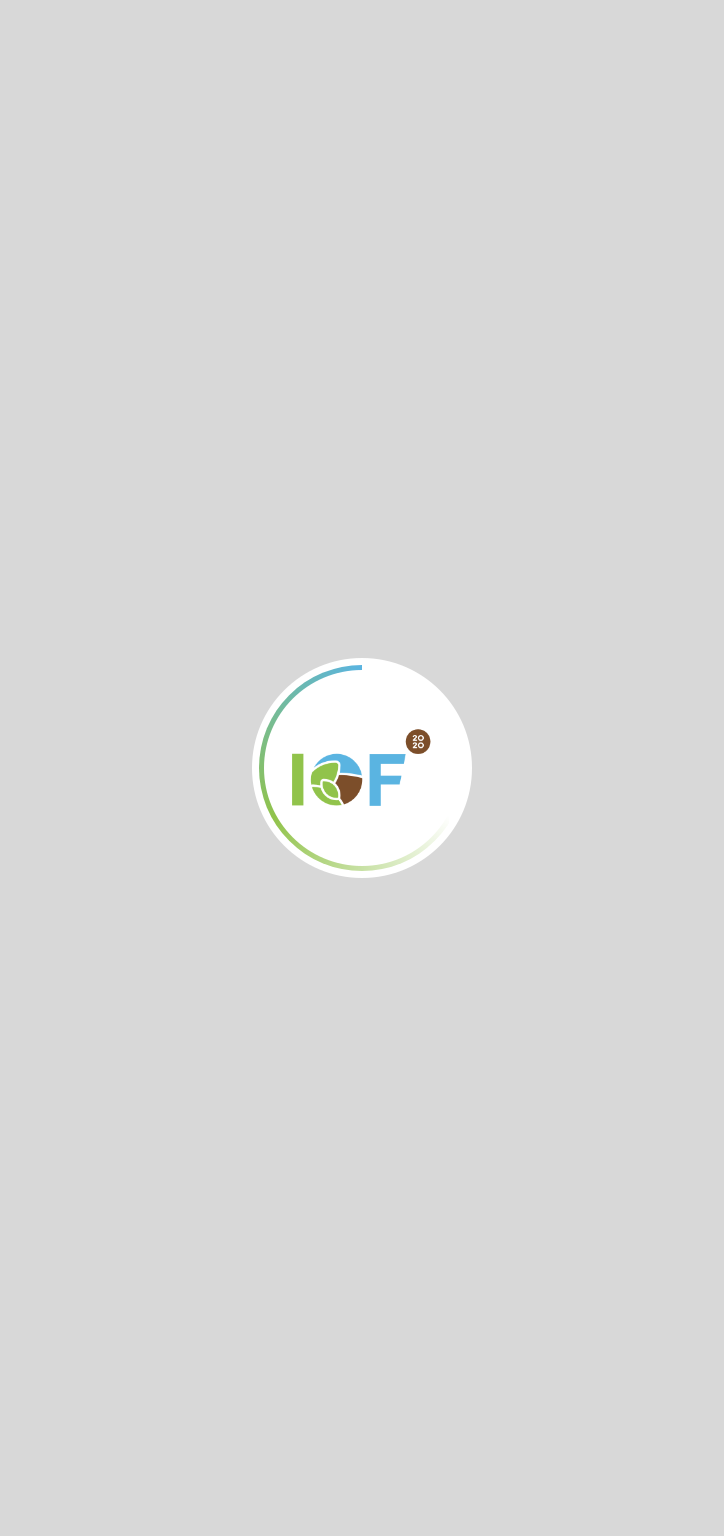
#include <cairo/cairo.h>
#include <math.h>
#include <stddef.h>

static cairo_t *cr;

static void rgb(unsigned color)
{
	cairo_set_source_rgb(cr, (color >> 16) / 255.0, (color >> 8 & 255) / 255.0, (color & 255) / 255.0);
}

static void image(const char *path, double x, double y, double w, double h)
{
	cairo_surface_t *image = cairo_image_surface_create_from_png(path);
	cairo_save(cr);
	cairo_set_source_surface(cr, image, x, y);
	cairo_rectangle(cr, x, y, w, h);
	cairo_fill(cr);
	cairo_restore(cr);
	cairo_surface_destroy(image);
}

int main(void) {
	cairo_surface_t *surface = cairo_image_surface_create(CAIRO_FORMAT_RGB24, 724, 1536);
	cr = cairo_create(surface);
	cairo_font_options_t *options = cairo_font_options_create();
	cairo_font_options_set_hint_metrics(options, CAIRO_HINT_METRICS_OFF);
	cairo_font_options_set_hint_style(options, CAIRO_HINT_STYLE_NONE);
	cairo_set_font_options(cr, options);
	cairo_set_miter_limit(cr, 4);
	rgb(0xd8d8d8);
	cairo_paint(cr);
	rgb(0xffffff);
	cairo_arc(cr, 362, 768, 110, 0, 2 * M_PI);
	cairo_fill(cr);
	image("img/1.png", 259, 665, 190, 206);
	cairo_arc(cr, 362, 768, 98, 0, 2 * M_PI);
	cairo_fill(cr);
	image("img/2.png", 292, 729, 139, 77);
	cairo_surface_write_to_png(surface, "page.png");
	cairo_font_options_destroy(options);
	cairo_destroy(cr);
	cairo_surface_destroy(surface);
	return 0;
}
